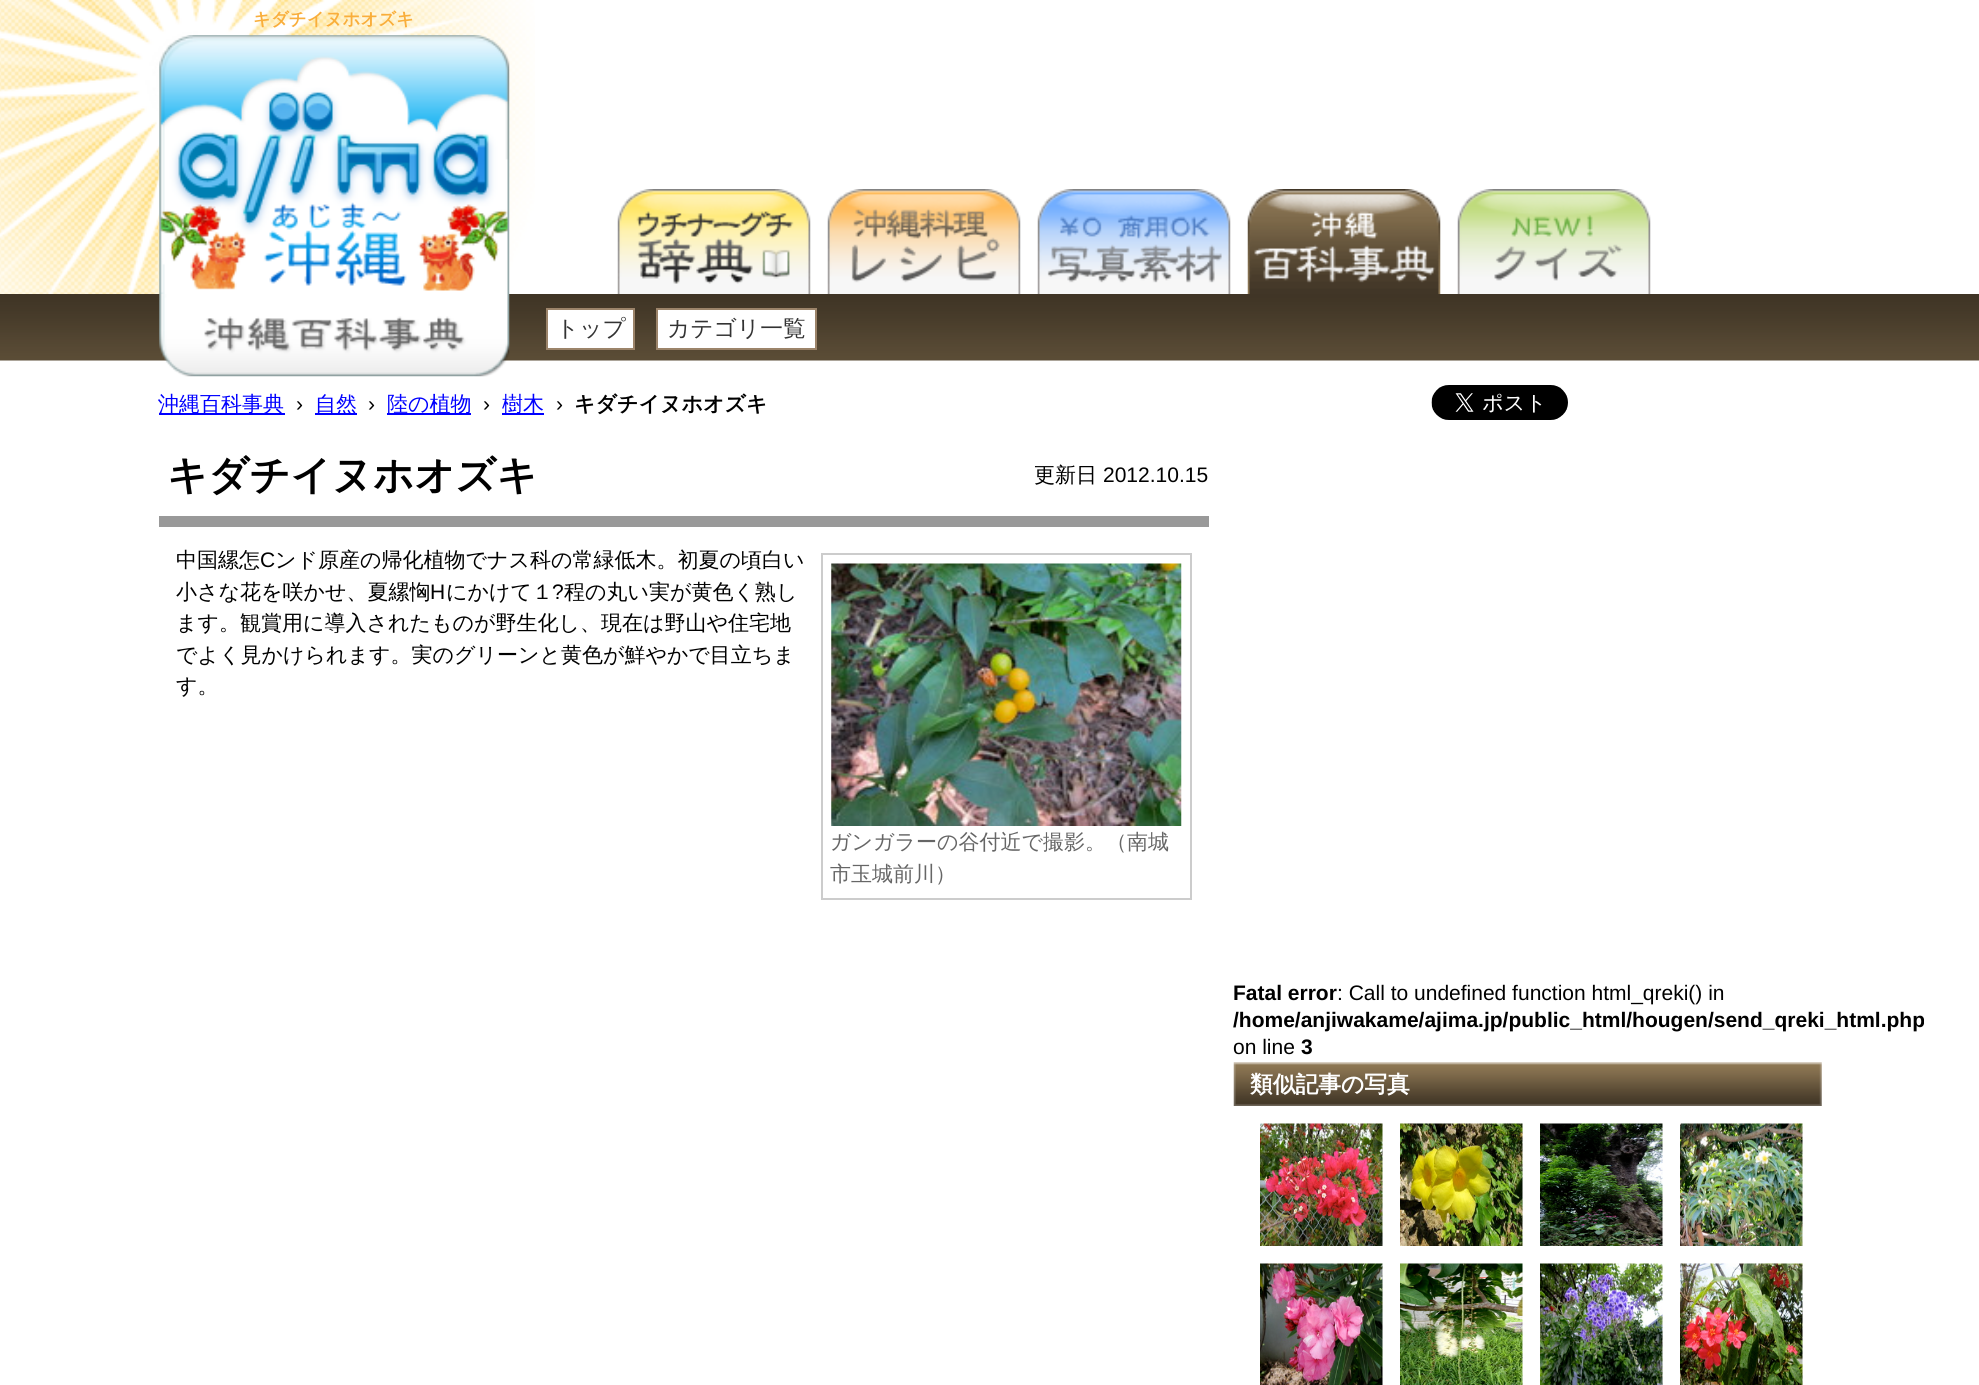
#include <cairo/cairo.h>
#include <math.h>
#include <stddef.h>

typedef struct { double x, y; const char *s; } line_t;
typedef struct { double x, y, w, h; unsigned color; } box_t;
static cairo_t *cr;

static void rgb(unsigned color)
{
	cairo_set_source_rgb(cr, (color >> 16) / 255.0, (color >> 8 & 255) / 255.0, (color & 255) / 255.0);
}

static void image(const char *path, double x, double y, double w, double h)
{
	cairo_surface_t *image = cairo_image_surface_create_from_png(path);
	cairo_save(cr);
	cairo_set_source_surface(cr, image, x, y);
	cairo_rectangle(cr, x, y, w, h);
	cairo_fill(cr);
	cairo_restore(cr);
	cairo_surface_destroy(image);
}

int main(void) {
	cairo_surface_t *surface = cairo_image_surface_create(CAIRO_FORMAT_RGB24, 1979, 1385);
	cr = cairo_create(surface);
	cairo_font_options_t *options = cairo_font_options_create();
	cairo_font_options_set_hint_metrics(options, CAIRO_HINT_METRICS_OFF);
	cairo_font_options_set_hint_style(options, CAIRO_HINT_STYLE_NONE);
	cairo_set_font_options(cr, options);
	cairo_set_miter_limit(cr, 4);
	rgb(0xffffff);
	cairo_paint(cr);
	image("img/1.png", 0, 0, 535, 294);
	image("img/2.png", 159, 35, 351, 259);
	image("img/3.png", 617, 189, 194, 105);
	image("img/4.png", 827, 189, 194, 105);
	image("img/5.png", 1037, 189, 194, 105);
	image("img/6.png", 1247, 189, 194, 105);
	image("img/7.png", 1457, 189, 194, 105);
	image("img/8.png", 0, 294, 1979, 67);
	image("img/9.png", 159, 294, 351, 83);
	rgb(0xffffff);
	cairo_rectangle(cr, 547, 309, 87, 40);
	cairo_fill_preserve(cr);
	rgb(0x9c846a);
	cairo_stroke(cr);
	rgb(0xffffff);
	cairo_rectangle(cr, 657, 309, 159, 40);
	cairo_fill_preserve(cr);
	rgb(0x9c846a);
	cairo_stroke(cr);
	{
		static const box_t items[] = {
			{159, 413, 126, 2, 0x0000ff},
			{315, 413, 42, 2, 0x0000ff},
			{387, 413, 84, 2, 0x0000ff},
			{502, 413, 42, 2, 0x0000ff},
			{159, 516, 1050, 11, 0x999999},
		};
		for (size_t i = 0; i < sizeof items / sizeof *items; i++) {
			rgb(items[i].color);
			cairo_rectangle(cr, items[i].x, items[i].y, items[i].w, items[i].h);
			cairo_fill(cr);
		}
	}
	cairo_rectangle(cr, 822, 554, 369, 345);
	rgb(0xcccccc);
	cairo_stroke(cr);
	image("img/10.png", 831, 563, 351, 263);
	image("img/11.png", 1431, 385, 137, 35);
	image("img/12.png", 1233, 1062, 589, 44);
	image("img/13.png", 1260, 1123, 123, 123);
	image("img/14.png", 1400, 1123, 123, 123);
	image("img/15.png", 1540, 1123, 123, 123);
	image("img/16.png", 1680, 1123, 123, 123);
	image("img/17.png", 1260, 1263, 123, 122);
	image("img/18.png", 1400, 1263, 123, 122);
	image("img/19.png", 1540, 1263, 123, 122);
	image("img/20.png", 1680, 1263, 123, 122);
	cairo_select_font_face(cr, "WenQuanYi Zen Hei", CAIRO_FONT_SLANT_NORMAL, CAIRO_FONT_WEIGHT_BOLD);
	cairo_set_font_size(cr, 17.5);
	rgb(0xf9ae3b);
	cairo_move_to(cr, 253, 25);
	cairo_show_text(cr, "キダチイヌホオズキ");
	cairo_select_font_face(cr, "WenQuanYi Zen Hei Medium", CAIRO_FONT_SLANT_NORMAL, CAIRO_FONT_WEIGHT_NORMAL);
	cairo_set_font_size(cr, 22.75);
	rgb(0x333333);
	cairo_move_to(cr, 556, 336);
	cairo_show_text(cr, "トップ");
	cairo_move_to(cr, 667, 336);
	cairo_show_text(cr, "カテゴリ一覧");
	cairo_set_font_size(cr, 21);
	rgb(0x0000ff);
	cairo_move_to(cr, 158, 411);
	cairo_show_text(cr, "沖縄百科事典");
	cairo_select_font_face(cr, "Liberation Sans", CAIRO_FONT_SLANT_NORMAL, CAIRO_FONT_WEIGHT_NORMAL);
	rgb(0x000000);
	cairo_move_to(cr, 296, 411);
	cairo_show_text(cr, "›");
	cairo_select_font_face(cr, "WenQuanYi Zen Hei Medium", CAIRO_FONT_SLANT_NORMAL, CAIRO_FONT_WEIGHT_NORMAL);
	rgb(0x0000ff);
	cairo_move_to(cr, 315, 411);
	cairo_show_text(cr, "自然");
	cairo_select_font_face(cr, "Liberation Sans", CAIRO_FONT_SLANT_NORMAL, CAIRO_FONT_WEIGHT_NORMAL);
	rgb(0x000000);
	cairo_move_to(cr, 368, 411);
	cairo_show_text(cr, "›");
	cairo_select_font_face(cr, "WenQuanYi Zen Hei Medium", CAIRO_FONT_SLANT_NORMAL, CAIRO_FONT_WEIGHT_NORMAL);
	rgb(0x0000ff);
	cairo_move_to(cr, 387, 411);
	cairo_show_text(cr, "陸の植物");
	cairo_select_font_face(cr, "Liberation Sans", CAIRO_FONT_SLANT_NORMAL, CAIRO_FONT_WEIGHT_NORMAL);
	rgb(0x000000);
	cairo_move_to(cr, 483, 411);
	cairo_show_text(cr, "›");
	cairo_select_font_face(cr, "WenQuanYi Zen Hei Medium", CAIRO_FONT_SLANT_NORMAL, CAIRO_FONT_WEIGHT_NORMAL);
	rgb(0x0000ff);
	cairo_move_to(cr, 502, 411);
	cairo_show_text(cr, "樹木");
	cairo_select_font_face(cr, "Liberation Sans", CAIRO_FONT_SLANT_NORMAL, CAIRO_FONT_WEIGHT_NORMAL);
	rgb(0x000000);
	cairo_move_to(cr, 556, 411);
	cairo_show_text(cr, "›");
	cairo_select_font_face(cr, "WenQuanYi Zen Hei", CAIRO_FONT_SLANT_NORMAL, CAIRO_FONT_WEIGHT_BOLD);
	cairo_move_to(cr, 574, 411);
	cairo_show_text(cr, "キダチイヌホオズキ");
	cairo_set_font_size(cr, 40.25);
	cairo_move_to(cr, 167, 489);
	cairo_show_text(cr, "キダチイヌホオズキ");
	cairo_select_font_face(cr, "WenQuanYi Zen Hei Medium", CAIRO_FONT_SLANT_NORMAL, CAIRO_FONT_WEIGHT_NORMAL);
	cairo_set_font_size(cr, 21);
	cairo_move_to(cr, 1034, 482);
	cairo_show_text(cr, "更新日");
	cairo_select_font_face(cr, "Liberation Sans", CAIRO_FONT_SLANT_NORMAL, CAIRO_FONT_WEIGHT_NORMAL);
	cairo_move_to(cr, 1103, 482);
	cairo_show_text(cr, "2012.10.15");
	cairo_select_font_face(cr, "WenQuanYi Zen Hei Medium", CAIRO_FONT_SLANT_NORMAL, CAIRO_FONT_WEIGHT_NORMAL);
	cairo_move_to(cr, 176, 567);
	cairo_show_text(cr, "中国縲怎");
	cairo_select_font_face(cr, "Liberation Sans", CAIRO_FONT_SLANT_NORMAL, CAIRO_FONT_WEIGHT_NORMAL);
	cairo_move_to(cr, 260, 567);
	cairo_show_text(cr, "C");
	cairo_select_font_face(cr, "WenQuanYi Zen Hei Medium", CAIRO_FONT_SLANT_NORMAL, CAIRO_FONT_WEIGHT_NORMAL);
	cairo_move_to(cr, 275, 567);
	cairo_show_text(cr, "ンド原産の帰化植物でナス科の常緑低木。初夏の頃白い");
	cairo_move_to(cr, 176, 599);
	cairo_show_text(cr, "小さな花を咲かせ、夏縲恟");
	cairo_select_font_face(cr, "Liberation Sans", CAIRO_FONT_SLANT_NORMAL, CAIRO_FONT_WEIGHT_NORMAL);
	cairo_move_to(cr, 430, 599);
	cairo_show_text(cr, "H");
	cairo_select_font_face(cr, "WenQuanYi Zen Hei Medium", CAIRO_FONT_SLANT_NORMAL, CAIRO_FONT_WEIGHT_NORMAL);
	cairo_move_to(cr, 446, 599);
	cairo_show_text(cr, "にかけて１");
	cairo_select_font_face(cr, "Liberation Sans", CAIRO_FONT_SLANT_NORMAL, CAIRO_FONT_WEIGHT_NORMAL);
	cairo_move_to(cr, 552, 599);
	cairo_show_text(cr, "?");
	cairo_select_font_face(cr, "WenQuanYi Zen Hei Medium", CAIRO_FONT_SLANT_NORMAL, CAIRO_FONT_WEIGHT_NORMAL);
	{
		static const line_t items[] = {
			{564, 599, "程の丸い実が黄色く熟し"},
			{176, 630, "ます。観賞用に導入されたものが野生化し、現在は野山や住宅地"},
			{176, 662, "でよく見かけられます。実のグリーンと黄色が鮮やかで目立ちま"},
			{176, 693, "す。"},
		};
		for (size_t i = 0; i < sizeof items / sizeof *items; i++) {
			cairo_move_to(cr, items[i].x, items[i].y);
			cairo_show_text(cr, items[i].s);
		}
	}
	rgb(0x666666);
	cairo_move_to(cr, 830, 849);
	cairo_show_text(cr, "ガンガラーの谷付近で撮影。（南城");
	cairo_move_to(cr, 830, 881);
	cairo_show_text(cr, "市玉城前川）");
	cairo_select_font_face(cr, "Liberation Sans", CAIRO_FONT_SLANT_NORMAL, CAIRO_FONT_WEIGHT_BOLD);
	rgb(0x000000);
	cairo_move_to(cr, 1233, 1000);
	cairo_show_text(cr, "Fatal error");
	cairo_select_font_face(cr, "Liberation Sans", CAIRO_FONT_SLANT_NORMAL, CAIRO_FONT_WEIGHT_NORMAL);
	cairo_move_to(cr, 1337, 1000);
	cairo_show_text(cr, ": Call to undefined function html_qreki() in");
	cairo_select_font_face(cr, "Liberation Sans", CAIRO_FONT_SLANT_NORMAL, CAIRO_FONT_WEIGHT_BOLD);
	cairo_move_to(cr, 1233, 1027);
	cairo_show_text(cr, "/home/anjiwakame/ajima.jp/public_html/hougen/send_qreki_html.php");
	cairo_select_font_face(cr, "Liberation Sans", CAIRO_FONT_SLANT_NORMAL, CAIRO_FONT_WEIGHT_NORMAL);
	cairo_move_to(cr, 1233, 1054);
	cairo_show_text(cr, "on line");
	cairo_select_font_face(cr, "Liberation Sans", CAIRO_FONT_SLANT_NORMAL, CAIRO_FONT_WEIGHT_BOLD);
	cairo_move_to(cr, 1301, 1054);
	cairo_show_text(cr, "3");
	cairo_select_font_face(cr, "WenQuanYi Zen Hei", CAIRO_FONT_SLANT_NORMAL, CAIRO_FONT_WEIGHT_BOLD);
	cairo_set_font_size(cr, 22.75);
	rgb(0xffffff);
	cairo_move_to(cr, 1250, 1092);
	cairo_show_text(cr, "類似記事の写真");
	cairo_surface_write_to_png(surface, "page.png");
	cairo_font_options_destroy(options);
	cairo_destroy(cr);
	cairo_surface_destroy(surface);
	return 0;
}
